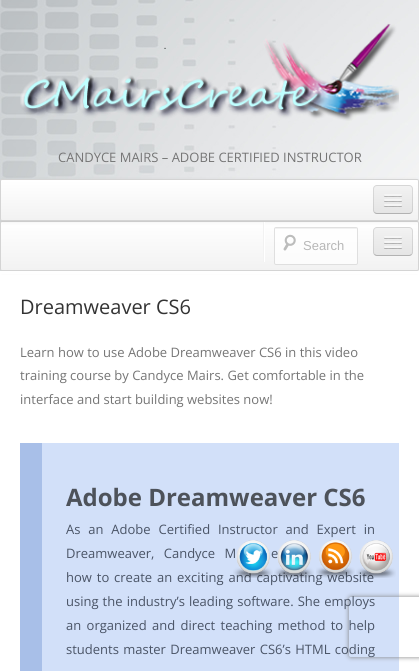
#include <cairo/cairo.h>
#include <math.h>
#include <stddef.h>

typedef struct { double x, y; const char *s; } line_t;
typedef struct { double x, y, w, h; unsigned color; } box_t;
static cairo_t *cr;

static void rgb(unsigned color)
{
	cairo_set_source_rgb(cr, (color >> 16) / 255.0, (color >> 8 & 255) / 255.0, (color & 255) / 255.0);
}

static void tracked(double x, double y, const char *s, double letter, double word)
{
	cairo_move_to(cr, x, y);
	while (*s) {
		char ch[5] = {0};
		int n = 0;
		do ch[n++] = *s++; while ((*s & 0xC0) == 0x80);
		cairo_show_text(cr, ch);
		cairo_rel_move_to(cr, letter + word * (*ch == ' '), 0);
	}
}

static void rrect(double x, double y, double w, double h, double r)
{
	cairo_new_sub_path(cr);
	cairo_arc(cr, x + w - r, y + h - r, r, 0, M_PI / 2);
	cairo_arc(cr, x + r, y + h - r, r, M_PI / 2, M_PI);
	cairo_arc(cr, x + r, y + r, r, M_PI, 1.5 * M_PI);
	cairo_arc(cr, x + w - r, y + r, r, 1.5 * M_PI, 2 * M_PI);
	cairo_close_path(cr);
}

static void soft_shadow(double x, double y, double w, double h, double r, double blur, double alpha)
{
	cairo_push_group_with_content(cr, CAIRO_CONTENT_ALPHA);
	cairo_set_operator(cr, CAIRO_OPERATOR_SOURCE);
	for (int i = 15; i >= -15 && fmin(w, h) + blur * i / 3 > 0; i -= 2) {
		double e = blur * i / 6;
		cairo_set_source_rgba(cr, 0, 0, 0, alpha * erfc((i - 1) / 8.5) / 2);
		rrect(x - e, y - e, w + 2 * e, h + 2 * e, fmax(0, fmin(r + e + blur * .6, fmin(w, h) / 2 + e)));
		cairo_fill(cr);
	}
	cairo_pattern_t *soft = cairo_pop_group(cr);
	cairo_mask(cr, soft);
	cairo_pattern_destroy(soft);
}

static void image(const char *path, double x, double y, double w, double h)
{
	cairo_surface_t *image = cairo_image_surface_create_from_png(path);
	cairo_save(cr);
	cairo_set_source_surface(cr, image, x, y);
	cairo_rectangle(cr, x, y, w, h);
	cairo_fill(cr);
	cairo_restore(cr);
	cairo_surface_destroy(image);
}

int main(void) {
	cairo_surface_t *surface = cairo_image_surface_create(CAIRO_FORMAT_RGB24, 419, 671);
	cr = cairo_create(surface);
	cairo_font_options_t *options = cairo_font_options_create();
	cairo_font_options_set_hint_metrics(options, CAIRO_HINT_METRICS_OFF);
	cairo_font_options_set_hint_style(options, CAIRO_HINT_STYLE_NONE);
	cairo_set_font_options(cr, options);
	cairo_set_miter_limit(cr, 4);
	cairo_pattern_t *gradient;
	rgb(0xffffff);
	cairo_paint(cr);
	image("img/1.png", 0, 0, 419, 271);
	image("img/2.png", 20, 23, 379, 98);
	rgb(0x000000);
	soft_shadow(0, 222, 419, 50, 2, 2, 0.07);
	cairo_save(cr);
	rrect(0, 221, 419, 50, 2);
	cairo_clip(cr);
	gradient = cairo_pattern_create_linear(210, 222, 210, 270);
	cairo_pattern_add_color_stop_rgba(gradient, 0, 1, 1, 1, 1);
	cairo_pattern_add_color_stop_rgba(gradient, 1, 0.949, 0.949, 0.949, 1);
	cairo_set_source(cr, gradient);
	cairo_pattern_destroy(gradient);
	cairo_rectangle(cr, 0, 222, 419, 48);
	cairo_fill(cr);
	cairo_restore(cr);
	rrect(0.5, 221.5, 418, 49, 1.5);
	rgb(0xd4d4d4);
	cairo_set_line_width(cr, 1);
	cairo_stroke(cr);
	rgb(0xededed);
	rrect(373, 227, 40, 29, 4);
	cairo_fill(cr);
	cairo_save(cr);
	rrect(373, 227, 40, 29, 4);
	cairo_clip(cr);
	gradient = cairo_pattern_create_linear(393, 228, 393, 255);
	cairo_pattern_add_color_stop_rgba(gradient, 0, 0.949, 0.949, 0.949, 1);
	cairo_pattern_add_color_stop_rgba(gradient, 1, 0.898, 0.898, 0.898, 1);
	cairo_set_source(cr, gradient);
	cairo_pattern_destroy(gradient);
	cairo_rectangle(cr, 373, 228, 40, 27);
	cairo_fill(cr);
	cairo_restore(cr);
	cairo_new_path(cr);
	cairo_move_to(cr, 411.5, 254.5);
	cairo_curve_to(cr, 411, 255, 410, 255.5, 409, 255.5);
	cairo_line_to(cr, 377, 255.5);
	cairo_curve_to(cr, 376, 255.5, 375, 255, 374.5, 254.5);
	cairo_set_source_rgba(cr, 0, 0, 0, 0.25);
	cairo_stroke(cr);
	cairo_new_path(cr);
	cairo_move_to(cr, 374.5, 254.5);
	cairo_curve_to(cr, 374, 254, 373.5, 253, 373.5, 252);
	cairo_line_to(cr, 373.5, 231);
	cairo_curve_to(cr, 373.5, 230, 374, 229, 374.5, 228.5);
	cairo_curve_to(cr, 375, 228, 376, 227.5, 377, 227.5);
	cairo_line_to(cr, 409, 227.5);
	cairo_curve_to(cr, 410, 227.5, 411, 228, 411.5, 228.5);
	cairo_curve_to(cr, 412, 229, 412.5, 230, 412.5, 231);
	cairo_line_to(cr, 412.5, 252);
	cairo_curve_to(cr, 412.5, 253, 412, 254, 411.5, 254.5);
	cairo_set_source_rgba(cr, 0, 0, 0, 0.1);
	cairo_stroke(cr);
	rgb(0x000000);
	soft_shadow(0, 180, 419, 42, 2, 2, 0.07);
	cairo_save(cr);
	rrect(0, 179, 419, 42, 2);
	cairo_clip(cr);
	gradient = cairo_pattern_create_linear(210, 180, 210, 220);
	cairo_pattern_add_color_stop_rgba(gradient, 0, 1, 1, 1, 1);
	cairo_pattern_add_color_stop_rgba(gradient, 1, 0.949, 0.949, 0.949, 1);
	cairo_set_source(cr, gradient);
	cairo_pattern_destroy(gradient);
	cairo_rectangle(cr, 0, 180, 419, 40);
	cairo_fill(cr);
	cairo_restore(cr);
	rrect(0.5, 179.5, 418, 41, 1.5);
	rgb(0xd4d4d4);
	cairo_stroke(cr);
	rgb(0xededed);
	rrect(373, 185, 40, 29, 4);
	cairo_fill(cr);
	cairo_save(cr);
	rrect(373, 185, 40, 29, 4);
	cairo_clip(cr);
	gradient = cairo_pattern_create_linear(393, 186, 393, 213);
	cairo_pattern_add_color_stop_rgba(gradient, 0, 0.949, 0.949, 0.949, 1);
	cairo_pattern_add_color_stop_rgba(gradient, 1, 0.898, 0.898, 0.898, 1);
	cairo_set_source(cr, gradient);
	cairo_pattern_destroy(gradient);
	cairo_rectangle(cr, 373, 186, 40, 27);
	cairo_fill(cr);
	cairo_restore(cr);
	cairo_new_path(cr);
	cairo_move_to(cr, 411.5, 212.5);
	cairo_curve_to(cr, 411, 213, 410, 213.5, 409, 213.5);
	cairo_line_to(cr, 377, 213.5);
	cairo_curve_to(cr, 376, 213.5, 375, 213, 374.5, 212.5);
	rgb(0xb2b2b2);
	cairo_stroke(cr);
	cairo_new_path(cr);
	cairo_move_to(cr, 374.5, 212.5);
	cairo_curve_to(cr, 374, 212, 373.5, 211, 373.5, 210);
	cairo_line_to(cr, 373.5, 189);
	cairo_curve_to(cr, 373.5, 188, 374, 187, 374.5, 186.5);
	cairo_curve_to(cr, 375, 186, 376, 185.5, 377, 185.5);
	cairo_line_to(cr, 409, 185.5);
	cairo_curve_to(cr, 410, 185.5, 411, 186, 411.5, 186.5);
	cairo_curve_to(cr, 412, 187, 412.5, 188, 412.5, 189);
	cairo_line_to(cr, 412.5, 210);
	cairo_curve_to(cr, 412.5, 211, 412, 212, 411.5, 212.5);
	cairo_set_source_rgba(cr, 0, 0, 0, 0.1);
	cairo_stroke(cr);
	rgb(0xb2b2b2);
	cairo_new_path(cr);
	cairo_move_to(cr, 384, 195.5);
	cairo_curve_to(cr, 383, 197.5, 387.5, 197, 387.5, 197);
	cairo_line_to(cr, 398.5, 197);
	cairo_curve_to(cr, 398.5, 197, 403, 197.5, 402, 195.5);
	cairo_curve_to(cr, 401, 196.5, 394.5, 196, 393, 196);
	cairo_curve_to(cr, 391.5, 196, 385, 196.5, 384, 195.5);
	cairo_close_path(cr);
	cairo_fill(cr);
	rgb(0xf5f5f5);
	rrect(384, 194, 18, 2, 1);
	cairo_fill(cr);
	rgb(0xb0b0b0);
	cairo_new_path(cr);
	cairo_move_to(cr, 384, 200.5);
	cairo_curve_to(cr, 383, 202.5, 387.5, 202, 387.5, 202);
	cairo_line_to(cr, 398.5, 202);
	cairo_curve_to(cr, 398.5, 202, 403, 202.5, 402, 200.5);
	cairo_curve_to(cr, 401, 201.5, 394.5, 201, 393, 201);
	cairo_curve_to(cr, 391.5, 201, 385, 201.5, 384, 200.5);
	cairo_close_path(cr);
	cairo_fill(cr);
	rgb(0xf5f5f5);
	rrect(384, 199, 18, 2, 1);
	cairo_fill(cr);
	rgb(0xaeaeae);
	cairo_new_path(cr);
	cairo_move_to(cr, 384, 205.5);
	cairo_curve_to(cr, 383, 207.5, 387.5, 207, 387.5, 207);
	cairo_line_to(cr, 398.5, 207);
	cairo_curve_to(cr, 398.5, 207, 403, 207.5, 402, 205.5);
	cairo_curve_to(cr, 401, 206.5, 394.5, 206, 393, 206);
	cairo_curve_to(cr, 391.5, 206, 385, 206.5, 384, 205.5);
	cairo_close_path(cr);
	cairo_fill(cr);
	rgb(0xf5f5f5);
	rrect(384, 204, 18, 2, 1);
	cairo_fill(cr);
	rgb(0xffffff);
	cairo_rectangle(cr, 264, 222, 1, 40);
	cairo_fill(cr);
	rgb(0xf2f2f2);
	cairo_rectangle(cr, 263, 222, 1, 40);
	cairo_fill(cr);
	cairo_set_source_rgba(cr, 1, 1, 1, 0.7);
	rrect(274, 227, 84, 38, 2);
	cairo_fill(cr);
	image("img/3.png", 283, 234, 13, 17);
	rgb(0xf1f1f1);
	cairo_new_path(cr);
	cairo_move_to(cr, 276, 229);
	cairo_line_to(cr, 356, 229);
	cairo_curve_to(cr, 357, 229, 357, 229, 357, 230);
	cairo_curve_to(cr, 357, 229, 357, 228, 356, 228);
	cairo_line_to(cr, 276, 228);
	cairo_curve_to(cr, 275, 228, 275, 229, 275, 230);
	cairo_curve_to(cr, 275, 229, 275, 229, 276, 229);
	cairo_close_path(cr);
	cairo_fill(cr);
	rrect(274.5, 227.5, 83, 37, 1.5);
	cairo_set_source_rgba(cr, 0.831, 0.831, 0.831, 0.7);
	cairo_stroke(cr);
	rgb(0xb2b2b2);
	cairo_new_path(cr);
	cairo_move_to(cr, 384, 237.5);
	cairo_curve_to(cr, 383, 239.5, 387.5, 239, 387.5, 239);
	cairo_line_to(cr, 398.5, 239);
	cairo_curve_to(cr, 398.5, 239, 403, 239.5, 402, 237.5);
	cairo_curve_to(cr, 401, 238.5, 394.5, 238, 393, 238);
	cairo_curve_to(cr, 391.5, 238, 385, 238.5, 384, 237.5);
	cairo_close_path(cr);
	cairo_fill(cr);
	rgb(0xf5f5f5);
	rrect(384, 236, 18, 2, 1);
	cairo_fill(cr);
	rgb(0xb0b0b0);
	cairo_new_path(cr);
	cairo_move_to(cr, 384, 242.5);
	cairo_curve_to(cr, 383, 244.5, 387.5, 244, 387.5, 244);
	cairo_line_to(cr, 398.5, 244);
	cairo_curve_to(cr, 398.5, 244, 403, 244.5, 402, 242.5);
	cairo_curve_to(cr, 401, 243.5, 394.5, 243, 393, 243);
	cairo_curve_to(cr, 391.5, 243, 385, 243.5, 384, 242.5);
	cairo_close_path(cr);
	cairo_fill(cr);
	rgb(0xf5f5f5);
	rrect(384, 241, 18, 2, 1);
	cairo_fill(cr);
	rgb(0xaeaeae);
	cairo_new_path(cr);
	cairo_move_to(cr, 384, 247.5);
	cairo_curve_to(cr, 383, 249.5, 387.5, 249, 387.5, 249);
	cairo_line_to(cr, 398.5, 249);
	cairo_curve_to(cr, 398.5, 249, 403, 249.5, 402, 247.5);
	cairo_curve_to(cr, 401, 248.5, 394.5, 248, 393, 248);
	cairo_curve_to(cr, 391.5, 248, 385, 248.5, 384, 247.5);
	cairo_close_path(cr);
	cairo_fill(cr);
	rgb(0xf5f5f5);
	rrect(384, 246, 18, 2, 1);
	cairo_fill(cr);
	{
		static const box_t items[] = {
			{0, 271, 419, 3, 0xffffff},
			{42, 443, 357, 228, 0xd2e0f9},
			{20, 443, 22, 228, 0xa8bfe8},
		};
		for (size_t i = 0; i < sizeof items / sizeof *items; i++) {
			rgb(items[i].color);
			cairo_rectangle(cr, items[i].x, items[i].y, items[i].w, items[i].h);
			cairo_fill(cr);
		}
	}
	cairo_save(cr);
	cairo_set_fill_rule(cr, CAIRO_FILL_RULE_EVEN_ODD);
	cairo_new_path(cr);
	cairo_move_to(cr, 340, 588);
	cairo_line_to(cr, 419, 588);
	cairo_line_to(cr, 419, 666);
	cairo_line_to(cr, 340, 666);
	cairo_close_path(cr);
	cairo_move_to(cr, 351, 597);
	cairo_line_to(cr, 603, 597);
	cairo_curve_to(cr, 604, 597, 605, 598, 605, 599);
	cairo_line_to(cr, 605, 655);
	cairo_curve_to(cr, 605, 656, 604, 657, 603, 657);
	cairo_line_to(cr, 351, 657);
	cairo_curve_to(cr, 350, 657, 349, 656, 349, 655);
	cairo_line_to(cr, 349, 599);
	cairo_curve_to(cr, 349, 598, 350, 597, 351, 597);
	cairo_close_path(cr);
	cairo_clip(cr);
	rgb(0x808080);
	soft_shadow(349, 597, 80, 60, 2, 2.5, 1);
	cairo_restore(cr);
	cairo_select_font_face(cr, "Open Sans", CAIRO_FONT_SLANT_NORMAL, CAIRO_FONT_WEIGHT_NORMAL);
	cairo_set_font_size(cr, 13);
	rgb(0x757575);
	cairo_move_to(cr, 58, 162);
	cairo_show_text(cr, "CANDYCE MAIRS – ADOBE CERTIFIED INSTRUCTOR");
	cairo_select_font_face(cr, "Liberation Sans", CAIRO_FONT_SLANT_NORMAL, CAIRO_FONT_WEIGHT_NORMAL);
	rgb(0xb7b7b7);
	cairo_move_to(cr, 303, 250);
	cairo_show_text(cr, "Search");
	cairo_select_font_face(cr, "Open Sans", CAIRO_FONT_SLANT_NORMAL, CAIRO_FONT_WEIGHT_NORMAL);
	cairo_set_font_size(cr, 20);
	rgb(0x333333);
	cairo_move_to(cr, 20, 314);
	cairo_show_text(cr, "Dreamweaver CS6");
	cairo_set_font_size(cr, 13);
	rgb(0x757575);
	{
		static const line_t items[] = {
			{20, 357, "Learn how to use Adobe Dreamweaver CS6 in this video"},
			{20, 380, "training course by Candyce Mairs. Get comfortable in the"},
			{20, 404, "interface and start building websites now!"},
		};
		for (size_t i = 0; i < sizeof items / sizeof *items; i++) {
			cairo_move_to(cr, items[i].x, items[i].y);
			cairo_show_text(cr, items[i].s);
		}
	}
	cairo_select_font_face(cr, "Open Sans", CAIRO_FONT_SLANT_NORMAL, CAIRO_FONT_WEIGHT_BOLD);
	cairo_set_font_size(cr, 24);
	rgb(0x4d525a);
	cairo_move_to(cr, 66, 506);
	cairo_show_text(cr, "Adobe Dreamweaver CS6");
	cairo_select_font_face(cr, "Open Sans", CAIRO_FONT_SLANT_NORMAL, CAIRO_FONT_WEIGHT_NORMAL);
	cairo_set_font_size(cr, 13);
	rgb(0x4a5466);
	tracked(66, 534, "As an Adobe Certified Instructor and Expert in", 0, 4.5);
	tracked(66, 558, "Dreamweaver, Candyce M", 0, 6);
	tracked(271, 558, "e", 0, 6);
	tracked(66, 582, "how to create an exciting and captivating website", 0, 1.5);
	tracked(66, 606, "using the industry’s leading software. She employs", 0, 0.75);
	tracked(66, 630, "an organized and direct teaching method to help", 0, 2);
	tracked(66, 654, "students master Dreamweaver CS6’s HTML coding", 0, 1);
	image("img/4.png", 233, 540, 40, 38);
	image("img/5.png", 274, 540, 40, 38);
	image("img/6.png", 316, 539, 39, 39);
	image("img/7.png", 356, 540, 40, 38);
	cairo_surface_write_to_png(surface, "page.png");
	cairo_font_options_destroy(options);
	cairo_destroy(cr);
	cairo_surface_destroy(surface);
	return 0;
}
